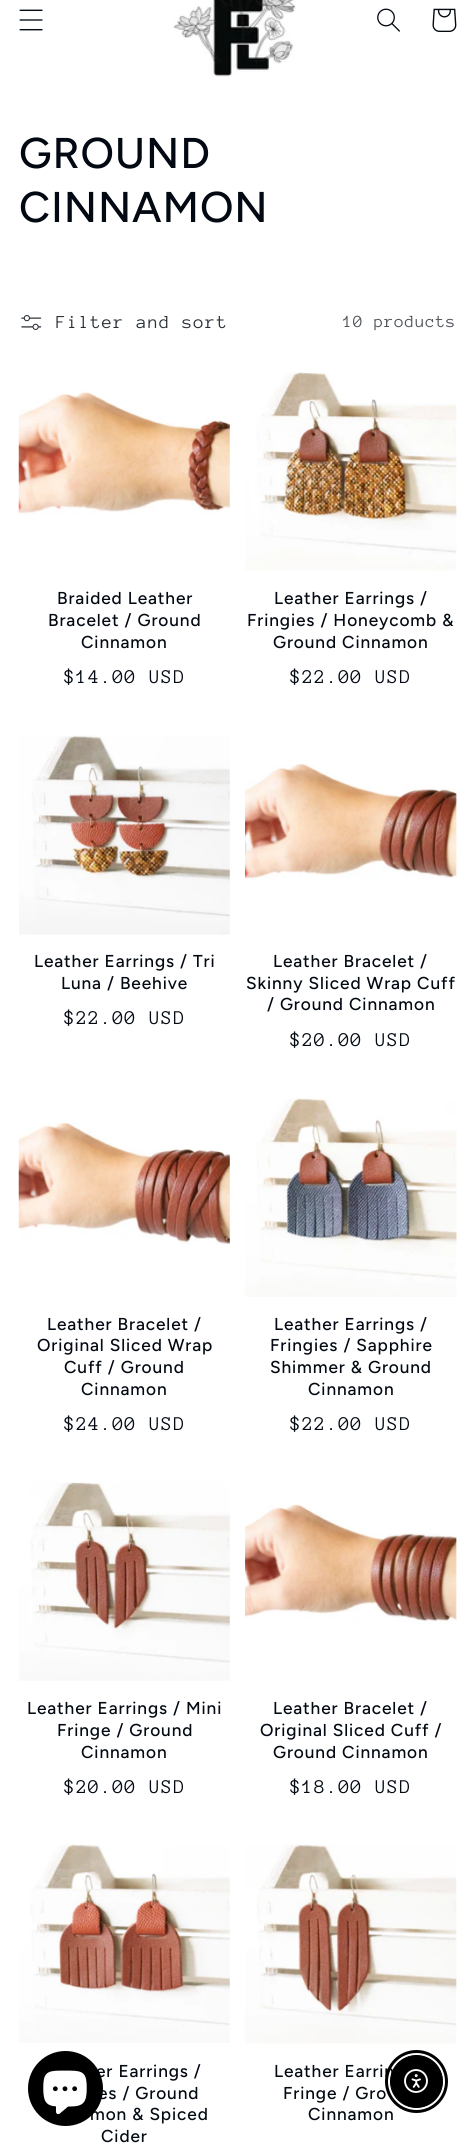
#include <cairo/cairo.h>
#include <math.h>
#include <stddef.h>

typedef struct { double x, y; const char *s; } line_t;
static cairo_t *cr;

static void rgb(unsigned color)
{
	cairo_set_source_rgb(cr, (color >> 16) / 255.0, (color >> 8 & 255) / 255.0, (color & 255) / 255.0);
}

static void tracked(double x, double y, const char *s, double letter, double word)
{
	cairo_move_to(cr, x, y);
	while (*s) {
		char ch[5] = {0};
		int n = 0;
		do ch[n++] = *s++; while ((*s & 0xC0) == 0x80);
		cairo_show_text(cr, ch);
		cairo_rel_move_to(cr, letter + word * (*ch == ' '), 0);
	}
}

static void image(const char *path, double x, double y, double w, double h)
{
	cairo_surface_t *image = cairo_image_surface_create_from_png(path);
	cairo_save(cr);
	cairo_set_source_surface(cr, image, x, y);
	cairo_rectangle(cr, x, y, w, h);
	cairo_fill(cr);
	cairo_restore(cr);
	cairo_surface_destroy(image);
}

int main(void) {
	cairo_surface_t *surface = cairo_image_surface_create(CAIRO_FORMAT_RGB24, 475, 2152);
	cr = cairo_create(surface);
	cairo_font_options_t *options = cairo_font_options_create();
	cairo_font_options_set_hint_metrics(options, CAIRO_HINT_METRICS_OFF);
	cairo_font_options_set_hint_style(options, CAIRO_HINT_STYLE_NONE);
	cairo_set_font_options(cr, options);
	cairo_set_miter_limit(cr, 4);
	rgb(0xffffff);
	cairo_paint(cr);
	image("img/1.png", 19, 9, 24, 22);
	image("img/2.png", 173, 0, 123, 77);
	image("img/3.png", 377, 8, 23, 24);
	image("img/4.png", 432, 8, 25, 24);
	image("img/5.png", 21, 315, 21, 15);
	image("img/6.png", 18, 390, 212, 125);
	image("img/7.png", 245, 371, 212, 200);
	image("img/8.png", 19, 735, 211, 200);
	image("img/9.png", 245, 763, 212, 116);
	image("img/10.png", 18, 1122, 212, 123);
	image("img/11.png", 245, 1098, 212, 199);
	image("img/12.png", 19, 1482, 211, 199);
	image("img/13.png", 245, 1504, 212, 121);
	image("img/14.png", 19, 1844, 211, 199);
	image("img/15.png", 245, 1844, 212, 200);
	cairo_select_font_face(cr, "Figtree Medium", CAIRO_FONT_SLANT_NORMAL, CAIRO_FONT_WEIGHT_NORMAL);
	cairo_set_font_size(cr, 43);
	rgb(0x020912);
	tracked(19, 168, "GROUND", 0.9, 0);
	tracked(19, 222, "CINNAMON", 0.9, 0);
	cairo_select_font_face(cr, "Anonymous Pro", CAIRO_FONT_SLANT_NORMAL, CAIRO_FONT_WEIGHT_NORMAL);
	cairo_set_font_size(cr, 18.75);
	rgb(0x282e36);
	tracked(56, 328, "Filter and sort", 1.25, 0);
	cairo_set_font_size(cr, 17.5);
	rgb(0x4e5359);
	tracked(343, 327, "10 products", 0.75, 0);
	cairo_select_font_face(cr, "Figtree Medium", CAIRO_FONT_SLANT_NORMAL, CAIRO_FONT_WEIGHT_NORMAL);
	cairo_set_font_size(cr, 17.25);
	rgb(0x020912);
	{
		static const line_t items[] = {
			{57, 604, "Braided Leather"},
			{48, 626, "Bracelet / Ground"},
			{81, 648, "Cinnamon"},
		};
		for (size_t i = 0; i < sizeof items / sizeof *items; i++) {
			tracked(items[i].x, items[i].y, items[i].s, 0.9, 0);
		}
	}
	cairo_select_font_face(cr, "Anonymous Pro", CAIRO_FONT_SLANT_NORMAL, CAIRO_FONT_WEIGHT_NORMAL);
	cairo_set_font_size(cr, 20);
	tracked(64, 683, "$14.00 USD", 1.25, 0);
	cairo_select_font_face(cr, "Figtree Medium", CAIRO_FONT_SLANT_NORMAL, CAIRO_FONT_WEIGHT_NORMAL);
	cairo_set_font_size(cr, 17.25);
	{
		static const line_t items[] = {
			{274, 604, "Leather Earrings /"},
			{247, 626, "Fringies / Honeycomb &"},
			{273, 648, "Ground Cinnamon"},
		};
		for (size_t i = 0; i < sizeof items / sizeof *items; i++) {
			tracked(items[i].x, items[i].y, items[i].s, 0.9, 0);
		}
	}
	cairo_select_font_face(cr, "Anonymous Pro", CAIRO_FONT_SLANT_NORMAL, CAIRO_FONT_WEIGHT_NORMAL);
	cairo_set_font_size(cr, 20);
	tracked(290, 683, "$22.00 USD", 1.25, 0);
	cairo_select_font_face(cr, "Figtree Medium", CAIRO_FONT_SLANT_NORMAL, CAIRO_FONT_WEIGHT_NORMAL);
	cairo_set_font_size(cr, 17.25);
	tracked(34, 967, "Leather Earrings / Tri", 0.9, 0);
	tracked(61, 989, "Luna / Beehive", 0.9, 0);
	cairo_select_font_face(cr, "Anonymous Pro", CAIRO_FONT_SLANT_NORMAL, CAIRO_FONT_WEIGHT_NORMAL);
	cairo_set_font_size(cr, 20);
	tracked(64, 1024, "$22.00 USD", 1.25, 0);
	cairo_select_font_face(cr, "Figtree Medium", CAIRO_FONT_SLANT_NORMAL, CAIRO_FONT_WEIGHT_NORMAL);
	cairo_set_font_size(cr, 17.25);
	{
		static const line_t items[] = {
			{273, 967, "Leather Bracelet /"},
			{246, 989, "Skinny Sliced Wrap Cuff"},
			{267, 1010, "/ Ground Cinnamon"},
		};
		for (size_t i = 0; i < sizeof items / sizeof *items; i++) {
			tracked(items[i].x, items[i].y, items[i].s, 0.9, 0);
		}
	}
	cairo_select_font_face(cr, "Anonymous Pro", CAIRO_FONT_SLANT_NORMAL, CAIRO_FONT_WEIGHT_NORMAL);
	cairo_set_font_size(cr, 20);
	tracked(290, 1046, "$20.00 USD", 1.25, 0);
	cairo_select_font_face(cr, "Figtree Medium", CAIRO_FONT_SLANT_NORMAL, CAIRO_FONT_WEIGHT_NORMAL);
	cairo_set_font_size(cr, 17.25);
	{
		static const line_t items[] = {
			{47, 1330, "Leather Bracelet /"},
			{37, 1351, "Original Sliced Wrap"},
			{64, 1373, "Cuff / Ground"},
			{81, 1395, "Cinnamon"},
		};
		for (size_t i = 0; i < sizeof items / sizeof *items; i++) {
			tracked(items[i].x, items[i].y, items[i].s, 0.9, 0);
		}
	}
	cairo_select_font_face(cr, "Anonymous Pro", CAIRO_FONT_SLANT_NORMAL, CAIRO_FONT_WEIGHT_NORMAL);
	cairo_set_font_size(cr, 20);
	tracked(64, 1430, "$24.00 USD", 1.25, 0);
	cairo_select_font_face(cr, "Figtree Medium", CAIRO_FONT_SLANT_NORMAL, CAIRO_FONT_WEIGHT_NORMAL);
	cairo_set_font_size(cr, 17.25);
	{
		static const line_t items[] = {
			{274, 1330, "Leather Earrings /"},
			{270, 1351, "Fringies / Sapphire"},
			{270, 1373, "Shimmer & Ground"},
			{308, 1395, "Cinnamon"},
		};
		for (size_t i = 0; i < sizeof items / sizeof *items; i++) {
			tracked(items[i].x, items[i].y, items[i].s, 0.9, 0);
		}
	}
	cairo_select_font_face(cr, "Anonymous Pro", CAIRO_FONT_SLANT_NORMAL, CAIRO_FONT_WEIGHT_NORMAL);
	cairo_set_font_size(cr, 20);
	tracked(290, 1430, "$22.00 USD", 1.25, 0);
	cairo_select_font_face(cr, "Figtree Medium", CAIRO_FONT_SLANT_NORMAL, CAIRO_FONT_WEIGHT_NORMAL);
	cairo_set_font_size(cr, 17.25);
	{
		static const line_t items[] = {
			{27, 1714, "Leather Earrings / Mini"},
			{57, 1736, "Fringe / Ground"},
			{81, 1758, "Cinnamon"},
		};
		for (size_t i = 0; i < sizeof items / sizeof *items; i++) {
			tracked(items[i].x, items[i].y, items[i].s, 0.9, 0);
		}
	}
	cairo_select_font_face(cr, "Anonymous Pro", CAIRO_FONT_SLANT_NORMAL, CAIRO_FONT_WEIGHT_NORMAL);
	cairo_set_font_size(cr, 20);
	tracked(64, 1793, "$20.00 USD", 1.25, 0);
	cairo_select_font_face(cr, "Figtree Medium", CAIRO_FONT_SLANT_NORMAL, CAIRO_FONT_WEIGHT_NORMAL);
	cairo_set_font_size(cr, 17.25);
	{
		static const line_t items[] = {
			{273, 1714, "Leather Bracelet /"},
			{260, 1736, "Original Sliced Cuff /"},
			{273, 1758, "Ground Cinnamon"},
		};
		for (size_t i = 0; i < sizeof items / sizeof *items; i++) {
			tracked(items[i].x, items[i].y, items[i].s, 0.9, 0);
		}
	}
	cairo_select_font_face(cr, "Anonymous Pro", CAIRO_FONT_SLANT_NORMAL, CAIRO_FONT_WEIGHT_NORMAL);
	cairo_set_font_size(cr, 20);
	tracked(290, 1793, "$18.00 USD", 1.25, 0);
	cairo_select_font_face(cr, "Figtree Medium", CAIRO_FONT_SLANT_NORMAL, CAIRO_FONT_WEIGHT_NORMAL);
	cairo_set_font_size(cr, 17.25);
	{
		static const line_t items[] = {
			{96, 2077, "er Earrings /"},
			{98, 2099, "es / Ground"},
			{90, 2120, "mon & Spiced"},
			{101, 2142, "Cider"},
			{274, 2077, "Leather Earrin"},
			{283, 2099, "Fringe / Gro"},
			{308, 2120, "Cinnamon"},
		};
		for (size_t i = 0; i < sizeof items / sizeof *items; i++) {
			tracked(items[i].x, items[i].y, items[i].s, 0.9, 0);
		}
	}
	rgb(0x000000);
	cairo_new_path(cr);
	cairo_arc(cr, 65.5, 2088.5, 37.5, 0, 2 * M_PI);
	cairo_fill(cr);
	image("img/16.png", 43, 2070, 44, 45);
	cairo_arc(cr, 416.5, 2081.5, 30, 0, 2 * M_PI);
	cairo_set_line_width(cr, 3);
	cairo_stroke(cr);
	cairo_arc(cr, 416.5, 2081.5, 26, 0, 2 * M_PI);
	cairo_fill_preserve(cr);
	cairo_set_line_width(cr, 1);
	cairo_stroke(cr);
	image("img/17.png", 404, 2069, 24, 24);
	cairo_surface_write_to_png(surface, "page.png");
	cairo_font_options_destroy(options);
	cairo_destroy(cr);
	cairo_surface_destroy(surface);
	return 0;
}
